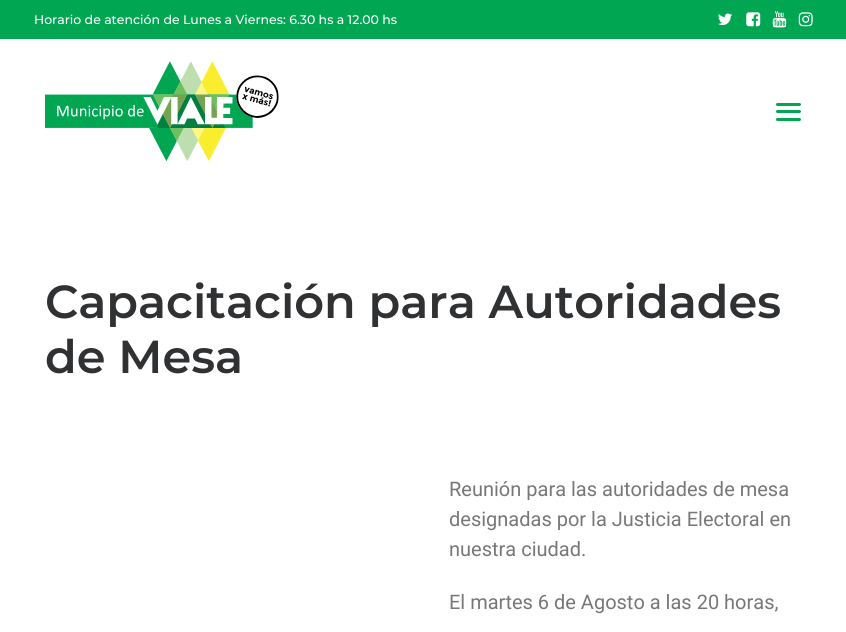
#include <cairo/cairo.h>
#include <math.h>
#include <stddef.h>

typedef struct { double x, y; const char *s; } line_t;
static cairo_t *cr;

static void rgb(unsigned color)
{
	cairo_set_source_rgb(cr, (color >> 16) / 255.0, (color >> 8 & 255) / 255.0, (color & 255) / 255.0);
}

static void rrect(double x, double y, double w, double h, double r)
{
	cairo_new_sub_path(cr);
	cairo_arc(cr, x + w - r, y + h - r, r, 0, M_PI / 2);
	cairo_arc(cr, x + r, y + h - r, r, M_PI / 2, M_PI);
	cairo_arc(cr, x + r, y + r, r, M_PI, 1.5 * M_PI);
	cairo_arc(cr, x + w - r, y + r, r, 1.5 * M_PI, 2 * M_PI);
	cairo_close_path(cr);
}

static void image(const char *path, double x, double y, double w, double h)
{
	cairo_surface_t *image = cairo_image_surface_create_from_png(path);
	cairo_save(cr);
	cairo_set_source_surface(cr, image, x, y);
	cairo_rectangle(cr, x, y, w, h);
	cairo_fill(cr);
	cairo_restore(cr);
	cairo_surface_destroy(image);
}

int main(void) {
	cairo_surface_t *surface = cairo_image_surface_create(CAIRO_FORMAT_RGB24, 846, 632);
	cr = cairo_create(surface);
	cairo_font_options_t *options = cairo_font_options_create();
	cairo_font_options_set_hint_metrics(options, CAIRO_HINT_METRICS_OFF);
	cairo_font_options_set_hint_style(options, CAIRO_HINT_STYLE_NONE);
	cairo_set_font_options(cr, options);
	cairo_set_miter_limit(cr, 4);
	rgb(0xffffff);
	cairo_paint(cr);
	rgb(0x00a651);
	cairo_rectangle(cr, 0, 0, 846, 39);
	cairo_fill(cr);
	image("img/1.png", 718, 13, 14, 13);
	image("img/2.png", 746, 12, 15, 15);
	image("img/3.png", 772, 11, 15, 17);
	image("img/4.png", 798, 12, 15, 15);
	image("img/5.png", 45, 61, 234, 100);
	rrect(776, 110, 25, 3, 1.5);
	cairo_fill(cr);
	rrect(776, 103, 25, 3, 1.5);
	cairo_fill(cr);
	rrect(776, 118, 25, 3, 1.5);
	cairo_fill(cr);
	cairo_select_font_face(cr, "Montserrat Medium", CAIRO_FONT_SLANT_NORMAL, CAIRO_FONT_WEIGHT_NORMAL);
	cairo_set_font_size(cr, 12.5);
	rgb(0xffffff);
	cairo_move_to(cr, 34, 24);
	cairo_show_text(cr, "Horario de atención de Lunes a Viernes: 6.30 hs a 12.00 hs");
	cairo_select_font_face(cr, "Montserrat SemiBold", CAIRO_FONT_SLANT_NORMAL, CAIRO_FONT_WEIGHT_NORMAL);
	cairo_set_font_size(cr, 46.25);
	rgb(0x303133);
	cairo_move_to(cr, 45, 318);
	cairo_show_text(cr, "Capacitación para Autoridades");
	cairo_move_to(cr, 45, 373);
	cairo_show_text(cr, "de Mesa");
	cairo_select_font_face(cr, "Roboto", CAIRO_FONT_SLANT_NORMAL, CAIRO_FONT_WEIGHT_NORMAL);
	cairo_set_font_size(cr, 20);
	rgb(0x777777);
	{
		static const line_t items[] = {
			{449, 496, "Reunión para las autoridades de mesa"},
			{449, 526, "designadas por la Justicia Electoral en"},
			{449, 556, "nuestra ciudad."},
			{449, 609, "El martes 6 de Agosto a las 20 horas,"},
		};
		for (size_t i = 0; i < sizeof items / sizeof *items; i++) {
			cairo_move_to(cr, items[i].x, items[i].y);
			cairo_show_text(cr, items[i].s);
		}
	}
	cairo_surface_write_to_png(surface, "page.png");
	cairo_font_options_destroy(options);
	cairo_destroy(cr);
	cairo_surface_destroy(surface);
	return 0;
}
